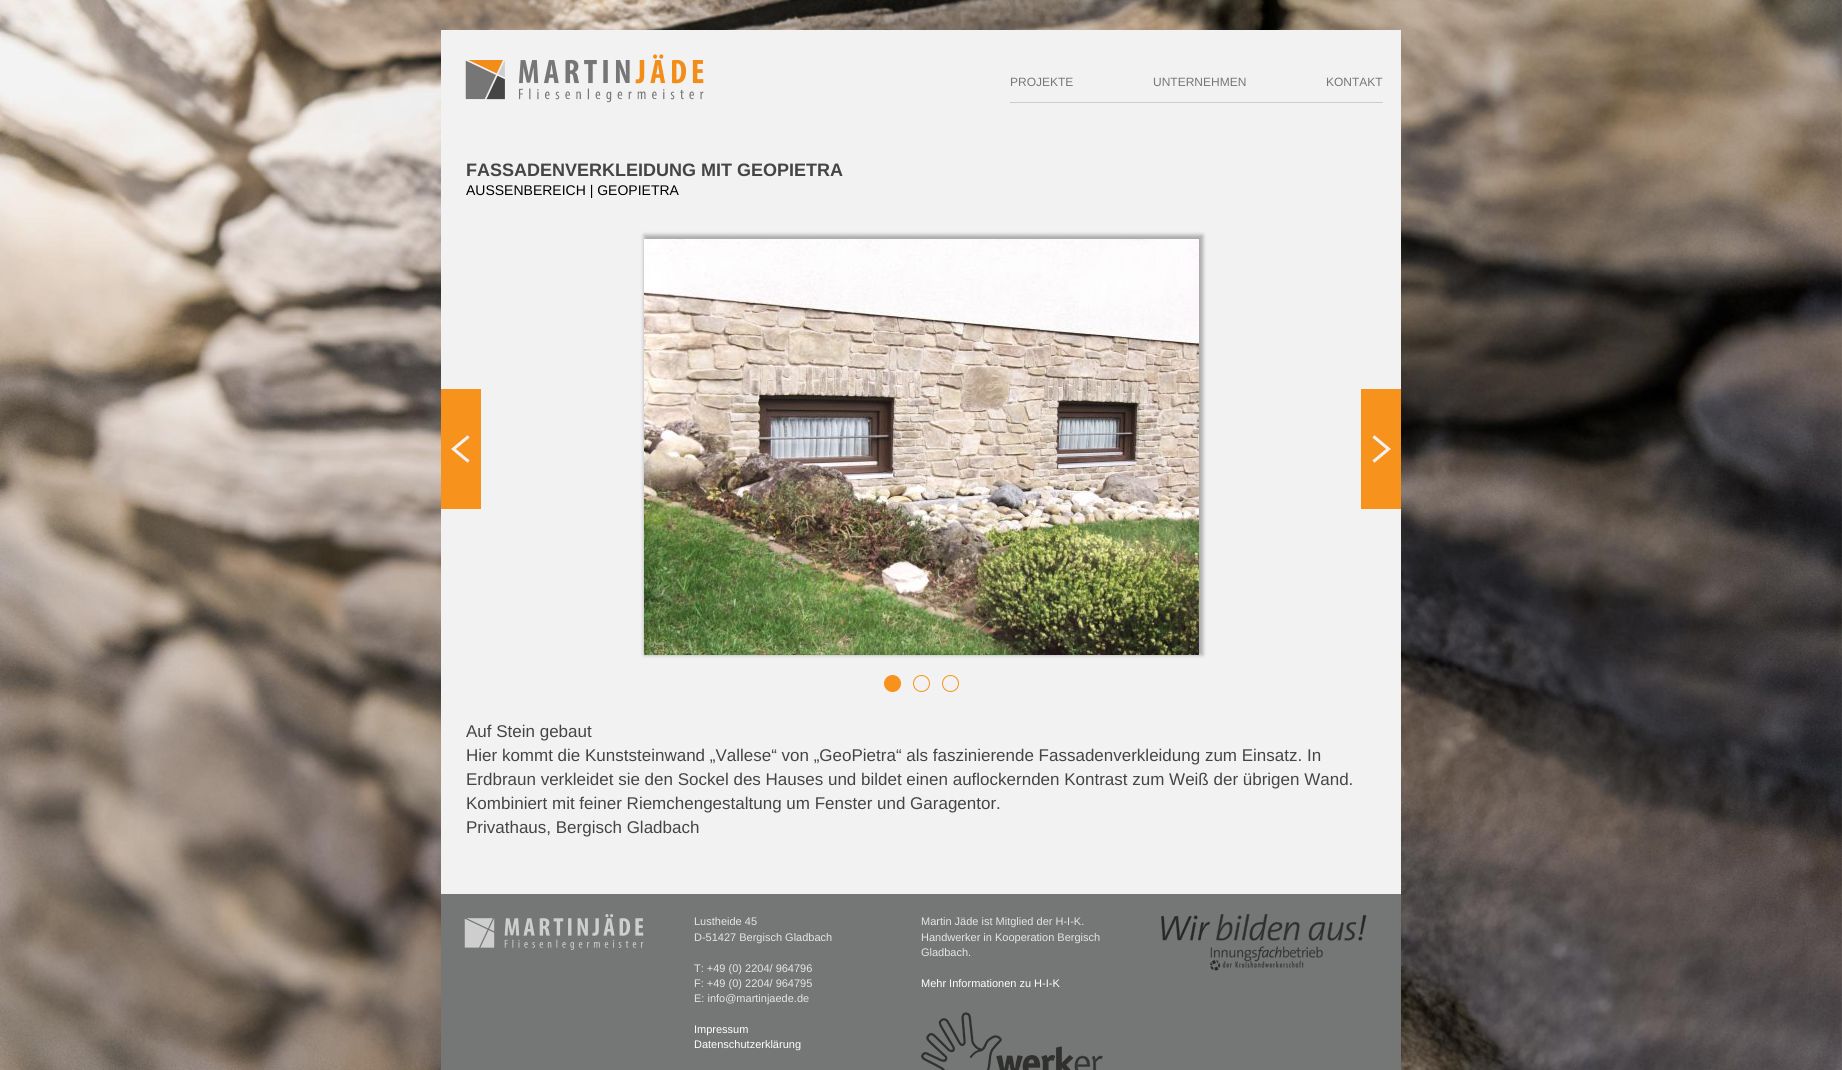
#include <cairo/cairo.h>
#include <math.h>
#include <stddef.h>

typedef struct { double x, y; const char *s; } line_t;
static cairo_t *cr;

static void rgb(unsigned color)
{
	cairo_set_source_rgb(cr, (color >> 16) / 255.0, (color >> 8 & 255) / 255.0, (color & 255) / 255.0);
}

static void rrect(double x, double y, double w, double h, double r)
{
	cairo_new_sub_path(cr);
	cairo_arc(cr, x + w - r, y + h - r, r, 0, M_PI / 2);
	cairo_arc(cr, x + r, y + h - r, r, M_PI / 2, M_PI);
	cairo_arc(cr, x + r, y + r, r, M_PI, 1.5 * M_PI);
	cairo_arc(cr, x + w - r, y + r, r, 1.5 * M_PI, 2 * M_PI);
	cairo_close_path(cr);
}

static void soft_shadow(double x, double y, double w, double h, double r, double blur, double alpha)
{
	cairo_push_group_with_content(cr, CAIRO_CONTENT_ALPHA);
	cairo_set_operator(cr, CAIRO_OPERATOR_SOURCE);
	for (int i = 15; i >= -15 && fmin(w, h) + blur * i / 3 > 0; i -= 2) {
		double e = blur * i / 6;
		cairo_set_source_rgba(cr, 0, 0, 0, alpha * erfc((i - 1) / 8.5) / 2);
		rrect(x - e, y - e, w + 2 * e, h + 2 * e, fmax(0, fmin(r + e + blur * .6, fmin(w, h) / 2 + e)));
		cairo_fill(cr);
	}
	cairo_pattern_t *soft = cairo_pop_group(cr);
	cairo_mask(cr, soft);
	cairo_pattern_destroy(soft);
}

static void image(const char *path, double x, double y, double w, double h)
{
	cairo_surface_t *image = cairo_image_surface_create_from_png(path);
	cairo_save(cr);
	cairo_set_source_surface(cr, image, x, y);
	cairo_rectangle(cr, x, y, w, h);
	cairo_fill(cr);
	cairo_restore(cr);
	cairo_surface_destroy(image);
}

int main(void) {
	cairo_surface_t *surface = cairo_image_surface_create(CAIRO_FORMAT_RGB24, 1842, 1070);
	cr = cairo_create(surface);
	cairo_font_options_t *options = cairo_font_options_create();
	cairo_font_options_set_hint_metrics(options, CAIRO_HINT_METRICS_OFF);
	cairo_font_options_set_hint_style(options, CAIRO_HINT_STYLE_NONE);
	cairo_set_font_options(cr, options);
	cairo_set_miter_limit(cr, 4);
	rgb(0xffffff);
	cairo_paint(cr);
	image("img/1.png", 0, 0, 1842, 1070);
	rgb(0xf2f2f2);
	cairo_rectangle(cr, 441, 30, 960, 864);
	cairo_fill(cr);
	image("img/2.png", 465, 54, 239, 49);
	rgb(0xcccccc);
	cairo_rectangle(cr, 1010, 102, 373, 1);
	cairo_fill(cr);
	rgb(0xaaaaaa);
	soft_shadow(644, 235, 559, 420, 0, 2, 1);
	image("img/3.png", 644, 239, 555, 416);
	rgb(0xf7921c);
	cairo_rectangle(cr, 441, 389, 40, 120);
	cairo_fill(cr);
	image("img/4.png", 451, 435, 19, 28);
	cairo_rectangle(cr, 1361, 389, 40, 120);
	cairo_fill(cr);
	image("img/5.png", 1372, 435, 19, 28);
	cairo_arc(cr, 892.5, 683.5, 8, 0, 2 * M_PI);
	cairo_fill_preserve(cr);
	cairo_set_line_width(cr, 1);
	cairo_stroke(cr);
	cairo_arc(cr, 921.5, 683.5, 8, 0, 2 * M_PI);
	cairo_stroke(cr);
	cairo_arc(cr, 950.5, 683.5, 8, 0, 2 * M_PI);
	cairo_stroke(cr);
	rgb(0x757676);
	cairo_rectangle(cr, 441, 894, 960, 176);
	cairo_fill(cr);
	image("img/6.png", 464, 914, 180, 36);
	image("img/7.png", 921, 1012, 182, 58);
	image("img/8.png", 1161, 914, 206, 57);
	cairo_select_font_face(cr, "Liberation Sans", CAIRO_FONT_SLANT_NORMAL, CAIRO_FONT_WEIGHT_NORMAL);
	cairo_set_font_size(cr, 12);
	{
		static const line_t items[] = {
			{1010, 86, "PROJEKTE"},
			{1153, 86, "UNTERNEHMEN"},
			{1326, 86, "KONTAKT"},
		};
		for (size_t i = 0; i < sizeof items / sizeof *items; i++) {
			cairo_move_to(cr, items[i].x, items[i].y);
			cairo_show_text(cr, items[i].s);
		}
	}
	cairo_select_font_face(cr, "Liberation Sans", CAIRO_FONT_SLANT_NORMAL, CAIRO_FONT_WEIGHT_BOLD);
	cairo_set_font_size(cr, 18);
	rgb(0x454545);
	cairo_move_to(cr, 466, 176);
	cairo_show_text(cr, "FASSADENVERKLEIDUNG MIT GEOPIETRA");
	cairo_select_font_face(cr, "Liberation Sans", CAIRO_FONT_SLANT_NORMAL, CAIRO_FONT_WEIGHT_NORMAL);
	cairo_set_font_size(cr, 14);
	rgb(0x000000);
	cairo_move_to(cr, 466, 195);
	cairo_show_text(cr, "AUSSENBEREICH | GEOPIETRA");
	cairo_set_font_size(cr, 17);
	rgb(0x454545);
	{
		static const line_t items[] = {
			{466, 737, "Auf Stein gebaut"},
			{466, 761, "Hier kommt die Kunststeinwand „Vallese“ von „GeoPietra“ als faszinierende Fassadenverkleidung zum Einsatz. In"},
			{466, 785, "Erdbraun verkleidet sie den Sockel des Hauses und bildet einen auflockernden Kontrast zum Weiß der übrigen Wand."},
			{466, 809, "Kombiniert mit feiner Riemchengestaltung um Fenster und Garagentor."},
			{466, 833, "Privathaus, Bergisch Gladbach"},
		};
		for (size_t i = 0; i < sizeof items / sizeof *items; i++) {
			cairo_move_to(cr, items[i].x, items[i].y);
			cairo_show_text(cr, items[i].s);
		}
	}
	cairo_set_font_size(cr, 11);
	rgb(0xe5e5e5);
	{
		static const line_t items[] = {
			{694, 925, "Lustheide 45"},
			{694, 941, "D-51427 Bergisch Gladbach"},
			{694, 972, "T: +49 (0) 2204/ 964796"},
			{694, 987, "F: +49 (0) 2204/ 964795"},
			{694, 1002, "E: info@martinjaede.de"},
		};
		for (size_t i = 0; i < sizeof items / sizeof *items; i++) {
			cairo_move_to(cr, items[i].x, items[i].y);
			cairo_show_text(cr, items[i].s);
		}
	}
	rgb(0xffffff);
	cairo_move_to(cr, 694, 1033);
	cairo_show_text(cr, "Impressum");
	cairo_move_to(cr, 694, 1048);
	cairo_show_text(cr, "Datenschutzerklärung");
	rgb(0xe5e5e5);
	{
		static const line_t items[] = {
			{921, 925, "Martin Jäde ist Mitglied der H-I-K."},
			{921, 941, "Handwerker in Kooperation Bergisch"},
			{921, 956, "Gladbach."},
		};
		for (size_t i = 0; i < sizeof items / sizeof *items; i++) {
			cairo_move_to(cr, items[i].x, items[i].y);
			cairo_show_text(cr, items[i].s);
		}
	}
	rgb(0xffffff);
	cairo_move_to(cr, 921, 987);
	cairo_show_text(cr, "Mehr Informationen zu H-I-K");
	cairo_surface_write_to_png(surface, "page.png");
	cairo_font_options_destroy(options);
	cairo_destroy(cr);
	cairo_surface_destroy(surface);
	return 0;
}
